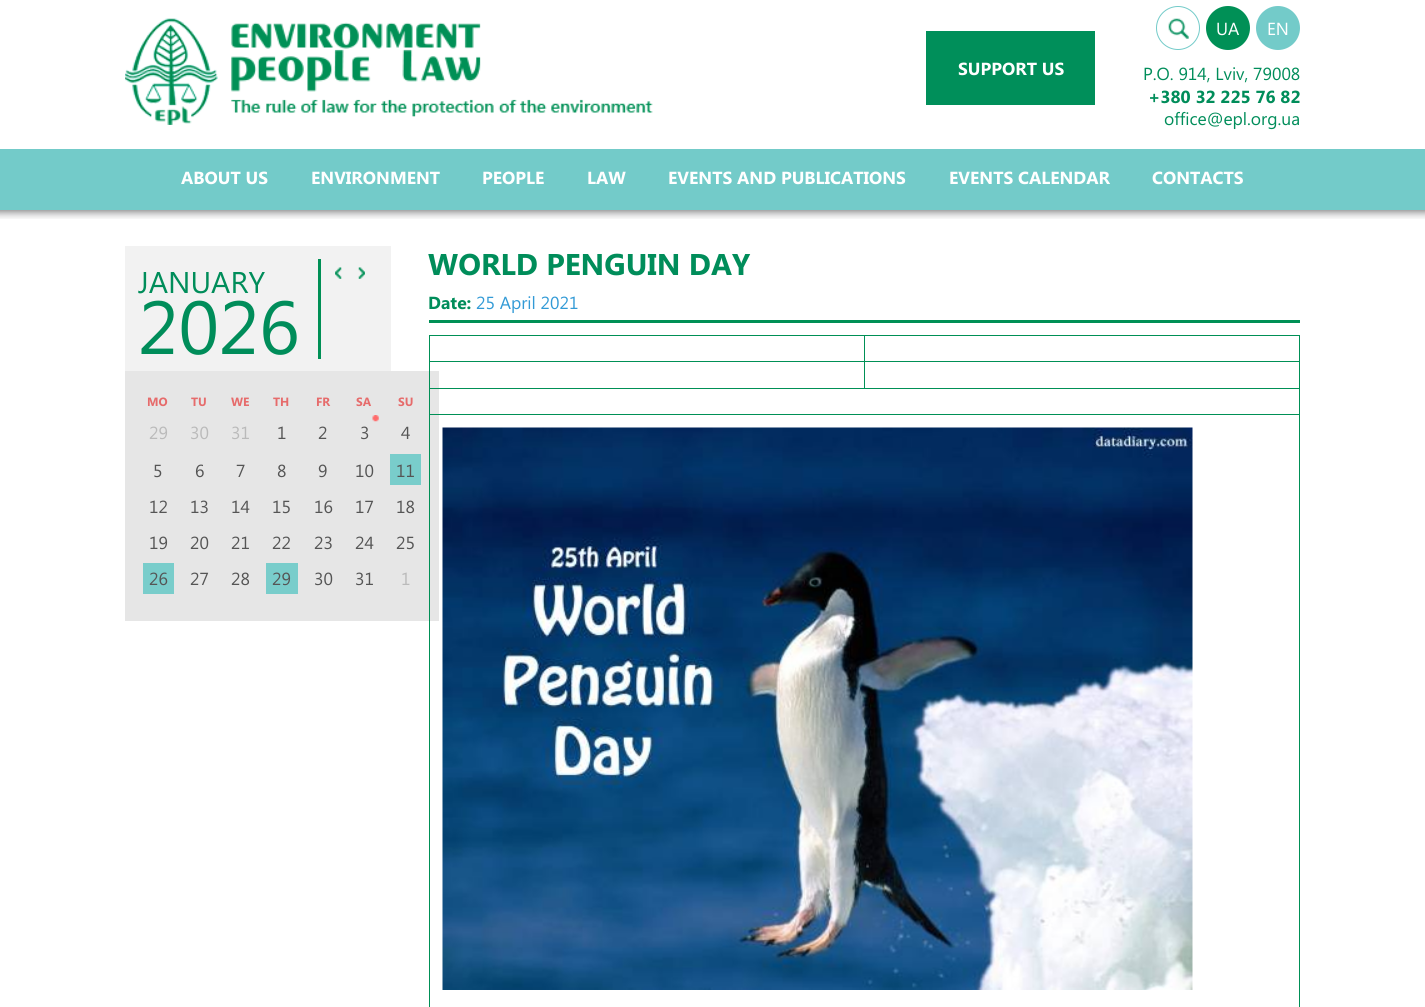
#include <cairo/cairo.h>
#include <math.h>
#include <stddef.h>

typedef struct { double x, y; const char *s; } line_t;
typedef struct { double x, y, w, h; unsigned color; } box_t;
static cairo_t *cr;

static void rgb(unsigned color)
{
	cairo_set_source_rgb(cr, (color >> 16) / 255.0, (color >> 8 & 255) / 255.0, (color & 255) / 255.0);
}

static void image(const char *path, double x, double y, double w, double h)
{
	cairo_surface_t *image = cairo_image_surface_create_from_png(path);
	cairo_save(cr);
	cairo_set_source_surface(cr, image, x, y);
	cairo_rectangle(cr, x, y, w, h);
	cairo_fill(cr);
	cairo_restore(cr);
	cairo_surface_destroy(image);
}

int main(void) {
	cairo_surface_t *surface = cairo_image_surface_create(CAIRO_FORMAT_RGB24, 1425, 1007);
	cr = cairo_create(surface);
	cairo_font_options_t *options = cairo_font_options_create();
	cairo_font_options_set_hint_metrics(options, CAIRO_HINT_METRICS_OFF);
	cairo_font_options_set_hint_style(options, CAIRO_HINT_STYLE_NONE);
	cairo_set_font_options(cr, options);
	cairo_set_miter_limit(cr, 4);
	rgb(0xffffff);
	cairo_paint(cr);
	image("img/1.png", 125, 18, 528, 107);
	rgb(0x008f5a);
	cairo_rectangle(cr, 926, 31, 169, 74);
	cairo_fill(cr);
	image("img/2.png", 1168, 18, 21, 21);
	cairo_arc(cr, 1178, 28, 21.5, 0, 2 * M_PI);
	rgb(0x73cbc9);
	cairo_set_line_width(cr, 1);
	cairo_stroke(cr);
	rgb(0x009056);
	cairo_arc(cr, 1228, 28, 22, 0, 2 * M_PI);
	cairo_fill(cr);
	rgb(0x73cbc9);
	cairo_arc(cr, 1278, 28, 22, 0, 2 * M_PI);
	cairo_fill(cr);
	image("img/3.png", 0, 210, 1425, 9);
	{
		static const box_t items[] = {
			{0, 149, 1425, 61, 0x73cbc9},
			{125, 246, 266, 125, 0xf2f2f2},
			{318, 259, 3, 100, 0x009056},
		};
		for (size_t i = 0; i < sizeof items / sizeof *items; i++) {
			rgb(items[i].color);
			cairo_rectangle(cr, items[i].x, items[i].y, items[i].w, items[i].h);
			cairo_fill(cr);
		}
	}
	image("img/4.png", 335, 267, 7, 12);
	image("img/5.png", 358, 267, 7, 12);
	rgb(0xe6e6e6);
	cairo_rectangle(cr, 125, 371, 314, 250);
	cairo_fill(cr);
	image("img/6.png", 372, 415, 7, 7);
	{
		static const box_t items[] = {
			{390, 454, 31, 31, 0x79cdcb},
			{143, 563, 31, 31, 0x79cdcb},
			{266, 563, 32, 31, 0x79cdcb},
			{429, 320, 871, 3, 0x009056},
			{429, 335, 871, 1, 0x009056},
			{1299, 335, 1, 672, 0x009056},
			{429, 335, 1, 672, 0x009056},
			{864, 361, 436, 1, 0x009056},
			{429, 388, 871, 1, 0x009056},
			{864, 361, 1, 28, 0x009056},
			{429, 361, 436, 1, 0x009056},
			{864, 335, 1, 28, 0x009056},
			{429, 414, 871, 1, 0x009056},
		};
		for (size_t i = 0; i < sizeof items / sizeof *items; i++) {
			rgb(items[i].color);
			cairo_rectangle(cr, items[i].x, items[i].y, items[i].w, items[i].h);
			cairo_fill(cr);
		}
	}
	image("img/7.png", 442, 427, 751, 563);
	cairo_select_font_face(cr, "Segoe UI", CAIRO_FONT_SLANT_NORMAL, CAIRO_FONT_WEIGHT_BOLD);
	cairo_set_font_size(cr, 17.5);
	rgb(0xffffff);
	cairo_move_to(cr, 958, 75);
	cairo_show_text(cr, "SUPPORT US");
	cairo_select_font_face(cr, "Segoe UI", CAIRO_FONT_SLANT_NORMAL, CAIRO_FONT_WEIGHT_NORMAL);
	cairo_move_to(cr, 1216, 35);
	cairo_show_text(cr, "UA");
	cairo_move_to(cr, 1267, 35);
	cairo_show_text(cr, "EN");
	rgb(0x008d5a);
	cairo_move_to(cr, 1143, 80);
	cairo_show_text(cr, "P.O. 914, Lviv, 79008");
	cairo_select_font_face(cr, "Segoe UI", CAIRO_FONT_SLANT_NORMAL, CAIRO_FONT_WEIGHT_BOLD);
	cairo_move_to(cr, 1148, 103);
	cairo_show_text(cr, "+380 32 225 76 82");
	cairo_select_font_face(cr, "Segoe UI", CAIRO_FONT_SLANT_NORMAL, CAIRO_FONT_WEIGHT_NORMAL);
	cairo_move_to(cr, 1164, 125);
	cairo_show_text(cr, "office@epl.org.ua");
	cairo_select_font_face(cr, "Segoe UI", CAIRO_FONT_SLANT_NORMAL, CAIRO_FONT_WEIGHT_BOLD);
	rgb(0xffffff);
	{
		static const line_t items[] = {
			{181, 184, "ABOUT US"},
			{311, 184, "ENVIRONMENT"},
			{482, 184, "PEOPLE"},
			{587, 184, "LAW"},
			{668, 184, "EVENTS AND PUBLICATIONS"},
			{949, 184, "EVENTS CALENDAR"},
			{1152, 184, "CONTACTS"},
		};
		for (size_t i = 0; i < sizeof items / sizeof *items; i++) {
			cairo_move_to(cr, items[i].x, items[i].y);
			cairo_show_text(cr, items[i].s);
		}
	}
	cairo_select_font_face(cr, "Segoe UI", CAIRO_FONT_SLANT_NORMAL, CAIRO_FONT_WEIGHT_NORMAL);
	cairo_set_font_size(cr, 30);
	rgb(0x008d5a);
	cairo_move_to(cr, 138, 293);
	cairo_show_text(cr, "JANUARY");
	cairo_set_font_size(cr, 75);
	cairo_move_to(cr, 138, 354);
	cairo_show_text(cr, "2026");
	cairo_select_font_face(cr, "Segoe UI", CAIRO_FONT_SLANT_NORMAL, CAIRO_FONT_WEIGHT_BOLD);
	cairo_set_font_size(cr, 12);
	rgb(0xe66b6b);
	{
		static const line_t items[] = {
			{147, 406, "MO"},
			{191, 406, "TU"},
			{231, 406, "WE"},
			{273, 406, "TH"},
			{316, 406, "FR"},
			{356, 406, "SA"},
			{398, 406, "SU"},
		};
		for (size_t i = 0; i < sizeof items / sizeof *items; i++) {
			cairo_move_to(cr, items[i].x, items[i].y);
			cairo_show_text(cr, items[i].s);
		}
	}
	cairo_select_font_face(cr, "Segoe UI", CAIRO_FONT_SLANT_NORMAL, CAIRO_FONT_WEIGHT_NORMAL);
	cairo_set_font_size(cr, 17.5);
	rgb(0xbababa);
	{
		static const line_t items[] = {
			{149, 439, "29"},
			{190, 439, "30"},
			{231, 439, "31"},
		};
		for (size_t i = 0; i < sizeof items / sizeof *items; i++) {
			cairo_move_to(cr, items[i].x, items[i].y);
			cairo_show_text(cr, items[i].s);
		}
	}
	rgb(0x555555);
	{
		static const line_t items[] = {
			{277, 439, "1"},
			{318, 439, "2"},
			{360, 439, "3"},
			{401, 439, "4"},
			{153, 477, "5"},
			{195, 477, "6"},
			{236, 477, "7"},
			{277, 477, "8"},
			{318, 477, "9"},
			{355, 477, "10"},
			{396, 477, "11"},
			{149, 513, "12"},
			{190, 513, "13"},
			{231, 513, "14"},
			{272, 513, "15"},
			{314, 513, "16"},
			{355, 513, "17"},
			{396, 513, "18"},
			{149, 549, "19"},
			{190, 549, "20"},
			{231, 549, "21"},
			{272, 549, "22"},
			{314, 549, "23"},
			{355, 549, "24"},
			{396, 549, "25"},
			{149, 585, "26"},
			{190, 585, "27"},
			{231, 585, "28"},
			{272, 585, "29"},
			{314, 585, "30"},
			{355, 585, "31"},
		};
		for (size_t i = 0; i < sizeof items / sizeof *items; i++) {
			cairo_move_to(cr, items[i].x, items[i].y);
			cairo_show_text(cr, items[i].s);
		}
	}
	rgb(0xbababa);
	cairo_move_to(cr, 401, 585);
	cairo_show_text(cr, "1");
	cairo_select_font_face(cr, "Segoe UI", CAIRO_FONT_SLANT_NORMAL, CAIRO_FONT_WEIGHT_BOLD);
	cairo_set_font_size(cr, 30);
	rgb(0x008d5a);
	cairo_move_to(cr, 428, 275);
	cairo_show_text(cr, "WORLD PENGUIN DAY");
	cairo_set_font_size(cr, 17.5);
	cairo_move_to(cr, 428, 309);
	cairo_show_text(cr, "Date:");
	cairo_select_font_face(cr, "Segoe UI", CAIRO_FONT_SLANT_NORMAL, CAIRO_FONT_WEIGHT_NORMAL);
	rgb(0x329ad6);
	cairo_move_to(cr, 476, 309);
	cairo_show_text(cr, "25 April 2021");
	cairo_surface_write_to_png(surface, "page.png");
	cairo_font_options_destroy(options);
	cairo_destroy(cr);
	cairo_surface_destroy(surface);
	return 0;
}
